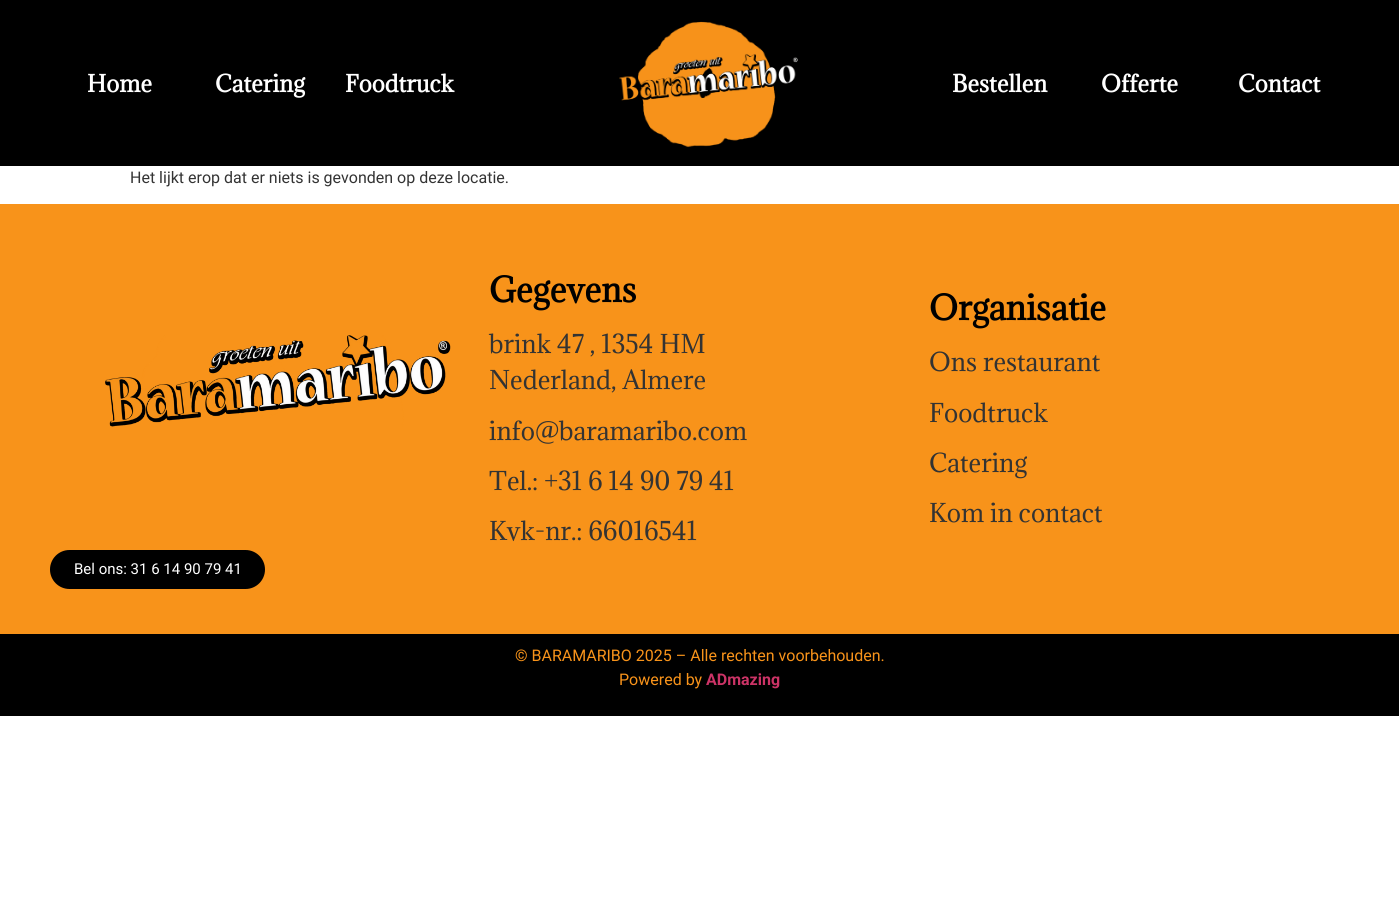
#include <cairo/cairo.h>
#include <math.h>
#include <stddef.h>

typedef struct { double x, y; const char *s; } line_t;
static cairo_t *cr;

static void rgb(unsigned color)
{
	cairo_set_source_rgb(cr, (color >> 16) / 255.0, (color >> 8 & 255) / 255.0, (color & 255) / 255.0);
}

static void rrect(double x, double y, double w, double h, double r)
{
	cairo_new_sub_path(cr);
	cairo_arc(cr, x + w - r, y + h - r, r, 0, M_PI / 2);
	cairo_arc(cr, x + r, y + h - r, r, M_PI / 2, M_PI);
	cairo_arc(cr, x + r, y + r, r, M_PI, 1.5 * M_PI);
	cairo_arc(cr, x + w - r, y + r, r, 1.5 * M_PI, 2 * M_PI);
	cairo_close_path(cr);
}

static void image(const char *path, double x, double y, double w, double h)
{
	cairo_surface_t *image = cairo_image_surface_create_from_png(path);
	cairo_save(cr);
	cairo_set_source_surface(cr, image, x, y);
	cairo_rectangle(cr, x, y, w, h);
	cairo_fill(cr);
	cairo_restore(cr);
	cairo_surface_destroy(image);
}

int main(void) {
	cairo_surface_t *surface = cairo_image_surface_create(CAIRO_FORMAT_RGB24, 1399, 909);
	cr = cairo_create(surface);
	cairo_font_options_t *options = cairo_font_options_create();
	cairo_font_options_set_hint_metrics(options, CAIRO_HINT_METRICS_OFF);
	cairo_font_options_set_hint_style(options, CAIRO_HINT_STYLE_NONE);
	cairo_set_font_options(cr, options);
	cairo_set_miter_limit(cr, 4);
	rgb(0xffffff);
	cairo_paint(cr);
	rgb(0x000000);
	cairo_rectangle(cr, 0, 0, 1399, 166);
	cairo_fill(cr);
	image("img/1.png", 619, 21, 179, 127);
	rgb(0xf8931a);
	cairo_rectangle(cr, 0, 204, 1399, 430);
	cairo_fill(cr);
	image("img/2.png", 105, 335, 346, 92);
	rgb(0x000000);
	rrect(50, 550, 215, 39, 19.5);
	cairo_fill(cr);
	cairo_rectangle(cr, 0, 634, 1399, 82);
	cairo_fill(cr);
	cairo_select_font_face(cr, "Adamina", CAIRO_FONT_SLANT_NORMAL, CAIRO_FONT_WEIGHT_BOLD);
	cairo_set_font_size(cr, 22);
	rgb(0xffffff);
	{
		static const line_t items[] = {
			{87, 92, "Home"},
			{215, 92, "Catering"},
			{345, 92, "Foodtruck"},
			{952, 92, "Bestellen"},
			{1101, 92, "Offerte"},
			{1238, 92, "Contact"},
		};
		for (size_t i = 0; i < sizeof items / sizeof *items; i++) {
			cairo_move_to(cr, items[i].x, items[i].y);
			cairo_show_text(cr, items[i].s);
		}
	}
	cairo_select_font_face(cr, "Roboto", CAIRO_FONT_SLANT_NORMAL, CAIRO_FONT_WEIGHT_NORMAL);
	cairo_set_font_size(cr, 16);
	rgb(0x333333);
	cairo_move_to(cr, 130, 183);
	cairo_show_text(cr, "Het lijkt erop dat er niets is gevonden op deze locatie.");
	cairo_select_font_face(cr, "Adamina", CAIRO_FONT_SLANT_NORMAL, CAIRO_FONT_WEIGHT_BOLD);
	cairo_set_font_size(cr, 32);
	rgb(0x000000);
	cairo_move_to(cr, 489, 302);
	cairo_show_text(cr, "Gegevens");
	cairo_select_font_face(cr, "Adamina", CAIRO_FONT_SLANT_NORMAL, CAIRO_FONT_WEIGHT_NORMAL);
	cairo_set_font_size(cr, 24);
	rgb(0x333333);
	{
		static const line_t items[] = {
			{489, 353, "brink 47 , 1354 HM"},
			{489, 389, "Nederland, Almere"},
			{489, 440, "info@baramaribo.com"},
			{489, 490, "Tel.: +31 6 14 90 79 41"},
			{489, 540, "Kvk-nr.: 66016541"},
		};
		for (size_t i = 0; i < sizeof items / sizeof *items; i++) {
			cairo_move_to(cr, items[i].x, items[i].y);
			cairo_show_text(cr, items[i].s);
		}
	}
	cairo_select_font_face(cr, "Adamina", CAIRO_FONT_SLANT_NORMAL, CAIRO_FONT_WEIGHT_BOLD);
	cairo_set_font_size(cr, 32);
	rgb(0x000000);
	cairo_move_to(cr, 929, 320);
	cairo_show_text(cr, "Organisatie");
	cairo_select_font_face(cr, "Adamina", CAIRO_FONT_SLANT_NORMAL, CAIRO_FONT_WEIGHT_NORMAL);
	cairo_set_font_size(cr, 24);
	rgb(0x333333);
	{
		static const line_t items[] = {
			{929, 371, "Ons restaurant"},
			{929, 422, "Foodtruck"},
			{929, 472, "Catering"},
			{929, 522, "Kom in contact"},
		};
		for (size_t i = 0; i < sizeof items / sizeof *items; i++) {
			cairo_move_to(cr, items[i].x, items[i].y);
			cairo_show_text(cr, items[i].s);
		}
	}
	cairo_select_font_face(cr, "Roboto", CAIRO_FONT_SLANT_NORMAL, CAIRO_FONT_WEIGHT_NORMAL);
	cairo_set_font_size(cr, 15);
	rgb(0xffffff);
	cairo_move_to(cr, 74, 574);
	cairo_show_text(cr, "Bel ons: 31 6 14 90 79 41");
	cairo_set_font_size(cr, 16);
	rgb(0xf8931a);
	cairo_move_to(cr, 515, 661);
	cairo_show_text(cr, "© BARAMARIBO 2025 – Alle rechten voorbehouden.");
	cairo_move_to(cr, 619, 685);
	cairo_show_text(cr, "Powered by");
	cairo_select_font_face(cr, "Roboto", CAIRO_FONT_SLANT_NORMAL, CAIRO_FONT_WEIGHT_BOLD);
	rgb(0xcc3366);
	cairo_move_to(cr, 706, 685);
	cairo_show_text(cr, "ADmazing");
	cairo_surface_write_to_png(surface, "page.png");
	cairo_font_options_destroy(options);
	cairo_destroy(cr);
	cairo_surface_destroy(surface);
	return 0;
}
